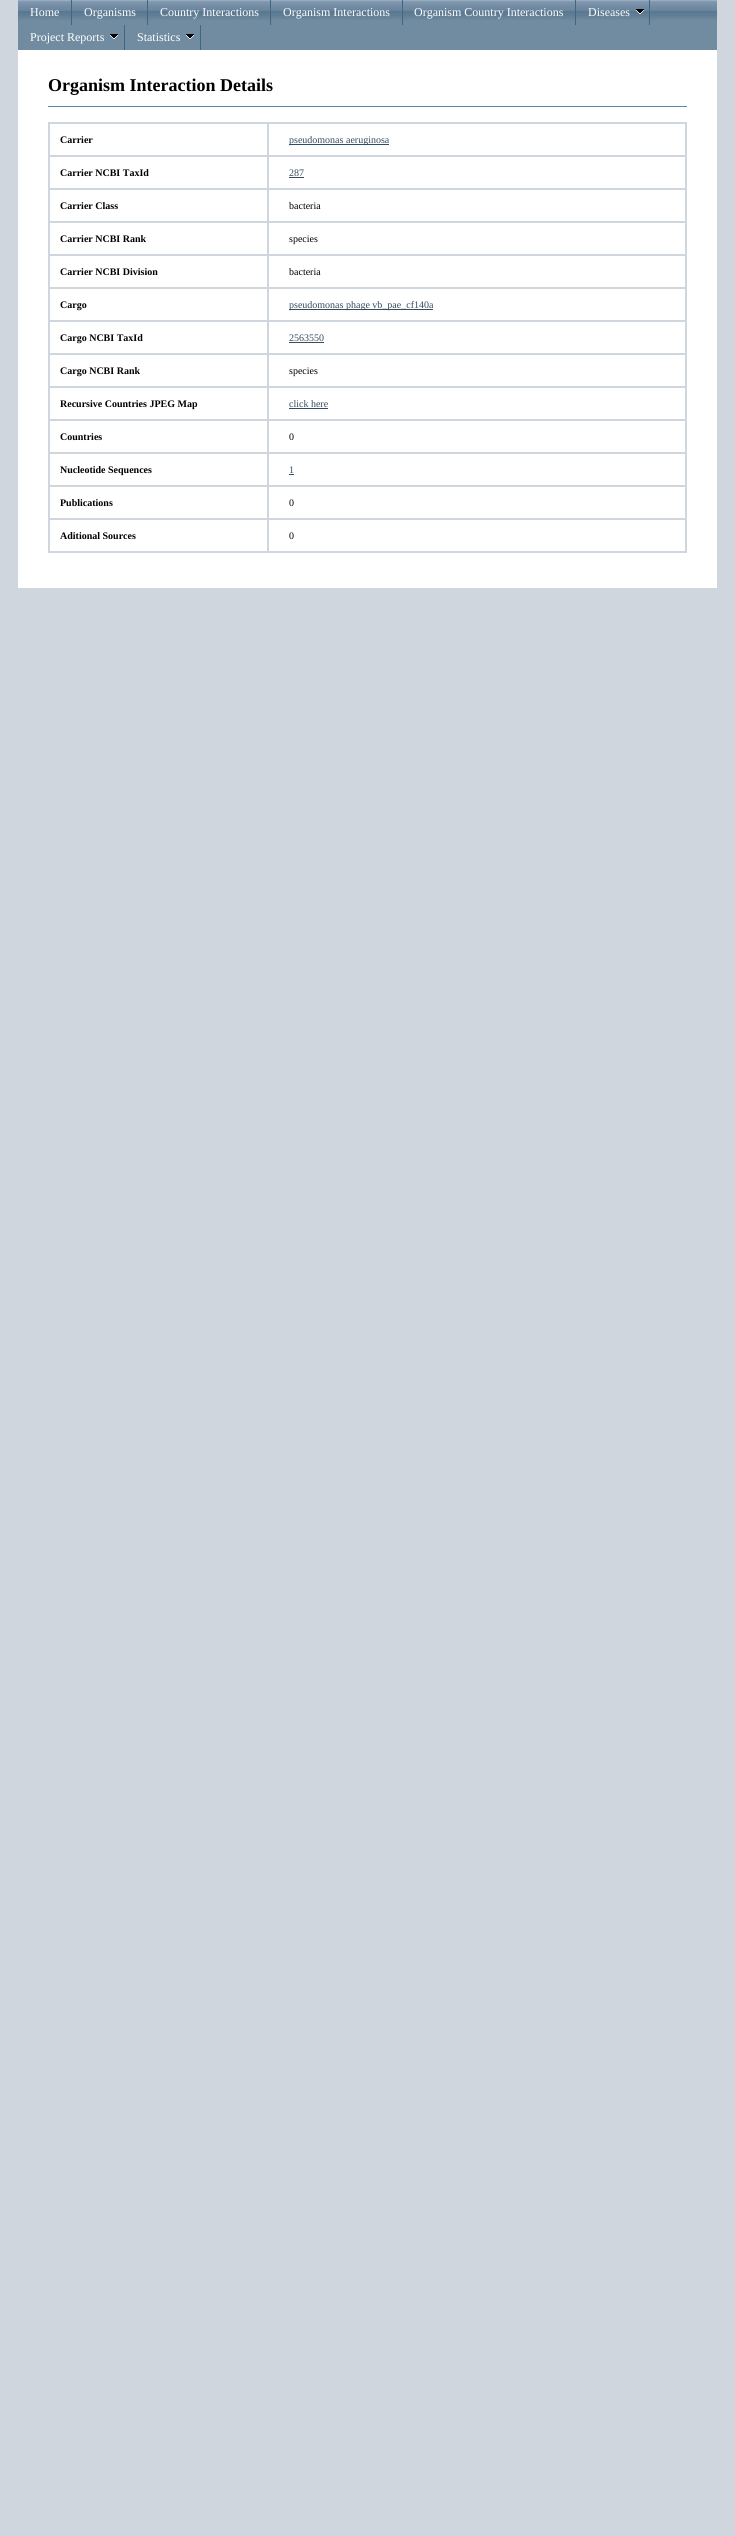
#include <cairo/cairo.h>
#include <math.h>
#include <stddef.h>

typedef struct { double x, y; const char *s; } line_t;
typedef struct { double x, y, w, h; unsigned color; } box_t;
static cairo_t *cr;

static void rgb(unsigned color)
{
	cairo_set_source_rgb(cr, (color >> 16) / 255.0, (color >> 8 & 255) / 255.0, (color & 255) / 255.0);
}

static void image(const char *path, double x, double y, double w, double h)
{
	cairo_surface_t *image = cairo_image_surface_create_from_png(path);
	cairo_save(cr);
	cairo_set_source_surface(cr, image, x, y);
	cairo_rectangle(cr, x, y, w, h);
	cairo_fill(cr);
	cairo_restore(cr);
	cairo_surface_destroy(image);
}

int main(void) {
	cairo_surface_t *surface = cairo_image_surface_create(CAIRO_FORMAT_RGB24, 735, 2536);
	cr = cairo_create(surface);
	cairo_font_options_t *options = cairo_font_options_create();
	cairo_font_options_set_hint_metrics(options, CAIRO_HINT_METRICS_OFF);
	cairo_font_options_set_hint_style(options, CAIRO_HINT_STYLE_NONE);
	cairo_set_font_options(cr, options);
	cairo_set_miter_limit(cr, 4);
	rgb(0xcfd6de);
	cairo_paint(cr);
	rgb(0x718ca1);
	cairo_rectangle(cr, 18, 20, 699, 30);
	cairo_fill(cr);
	image("img/1.png", 18, 0, 699, 20);
	{
		static const box_t items[] = {
			{71, 0, 1, 25, 0x426682},
			{147, 0, 1, 25, 0x426682},
			{270, 0, 1, 25, 0x426682},
			{402, 0, 1, 25, 0x426682},
			{575, 0, 1, 25, 0x426682},
			{649, 0, 1, 25, 0x426682},
		};
		for (size_t i = 0; i < sizeof items / sizeof *items; i++) {
			rgb(items[i].color);
			cairo_rectangle(cr, items[i].x, items[i].y, items[i].w, items[i].h);
			cairo_fill(cr);
		}
	}
	image("img/2.png", 636, 9, 8, 5);
	cairo_rectangle(cr, 124, 25, 1, 25);
	cairo_fill(cr);
	image("img/3.png", 110, 34, 8, 5);
	cairo_rectangle(cr, 200, 25, 1, 25);
	cairo_fill(cr);
	image("img/3.png", 186, 34, 8, 5);
	{
		static const box_t items[] = {
			{18, 50, 699, 538, 0xffffff},
			{48, 106, 639, 1, 0x5c87b2},
			{48, 122, 639, 431, 0xcfd6de},
			{50, 124, 217, 31, 0xffffff},
			{269, 124, 416, 31, 0xffffff},
			{289, 144, 100, 1, 0x354b5e},
			{50, 157, 217, 31, 0xffffff},
			{269, 157, 416, 31, 0xffffff},
			{289, 177, 15, 1, 0x354b5e},
			{50, 190, 217, 31, 0xffffff},
			{269, 190, 416, 31, 0xffffff},
			{50, 223, 217, 31, 0xffffff},
			{269, 223, 416, 31, 0xffffff},
			{50, 256, 217, 31, 0xffffff},
			{269, 256, 416, 31, 0xffffff},
			{50, 289, 217, 31, 0xffffff},
			{269, 289, 416, 31, 0xffffff},
			{289, 309, 144, 1, 0x354b5e},
			{50, 322, 217, 31, 0xffffff},
			{269, 322, 416, 31, 0xffffff},
			{289, 342, 35, 1, 0x354b5e},
			{50, 355, 217, 31, 0xffffff},
			{269, 355, 416, 31, 0xffffff},
			{50, 388, 217, 31, 0xffffff},
			{269, 388, 416, 31, 0xffffff},
			{289, 408, 39, 1, 0x354b5e},
			{50, 421, 217, 31, 0xffffff},
			{269, 421, 416, 31, 0xffffff},
			{50, 454, 217, 31, 0xffffff},
			{269, 454, 416, 31, 0xffffff},
			{289, 474, 5, 1, 0x354b5e},
			{50, 487, 217, 31, 0xffffff},
			{269, 487, 416, 31, 0xffffff},
			{50, 520, 217, 31, 0xffffff},
			{269, 520, 416, 31, 0xffffff},
		};
		for (size_t i = 0; i < sizeof items / sizeof *items; i++) {
			rgb(items[i].color);
			cairo_rectangle(cr, items[i].x, items[i].y, items[i].w, items[i].h);
			cairo_fill(cr);
		}
	}
	cairo_select_font_face(cr, "Liberation Serif", CAIRO_FONT_SLANT_NORMAL, CAIRO_FONT_WEIGHT_NORMAL);
	cairo_set_font_size(cr, 12);
	{
		static const line_t items[] = {
			{30, 16, "Home"},
			{84, 16, "Organisms"},
			{160, 16, "Country Interactions"},
			{283, 16, "Organism Interactions"},
			{414, 16, "Organism Country Interactions"},
			{588, 16, "Diseases"},
			{30, 41, "Project Reports"},
			{137, 41, "Statistics"},
		};
		for (size_t i = 0; i < sizeof items / sizeof *items; i++) {
			cairo_move_to(cr, items[i].x, items[i].y);
			cairo_show_text(cr, items[i].s);
		}
	}
	cairo_select_font_face(cr, "Liberation Serif", CAIRO_FONT_SLANT_NORMAL, CAIRO_FONT_WEIGHT_BOLD);
	cairo_set_font_size(cr, 18);
	rgb(0x000000);
	cairo_move_to(cr, 48, 91);
	cairo_show_text(cr, "Organism Interaction Details");
	cairo_set_font_size(cr, 10);
	cairo_move_to(cr, 60, 143);
	cairo_show_text(cr, "Carrier");
	cairo_select_font_face(cr, "Liberation Serif", CAIRO_FONT_SLANT_NORMAL, CAIRO_FONT_WEIGHT_NORMAL);
	rgb(0x354b5e);
	cairo_move_to(cr, 289, 143);
	cairo_show_text(cr, "pseudomonas aeruginosa");
	cairo_select_font_face(cr, "Liberation Serif", CAIRO_FONT_SLANT_NORMAL, CAIRO_FONT_WEIGHT_BOLD);
	rgb(0x000000);
	cairo_move_to(cr, 60, 176);
	cairo_show_text(cr, "Carrier NCBI TaxId");
	cairo_select_font_face(cr, "Liberation Serif", CAIRO_FONT_SLANT_NORMAL, CAIRO_FONT_WEIGHT_NORMAL);
	rgb(0x354b5e);
	cairo_move_to(cr, 289, 176);
	cairo_show_text(cr, "287");
	cairo_select_font_face(cr, "Liberation Serif", CAIRO_FONT_SLANT_NORMAL, CAIRO_FONT_WEIGHT_BOLD);
	rgb(0x000000);
	cairo_move_to(cr, 60, 209);
	cairo_show_text(cr, "Carrier Class");
	cairo_select_font_face(cr, "Liberation Serif", CAIRO_FONT_SLANT_NORMAL, CAIRO_FONT_WEIGHT_NORMAL);
	cairo_move_to(cr, 289, 209);
	cairo_show_text(cr, "bacteria");
	cairo_select_font_face(cr, "Liberation Serif", CAIRO_FONT_SLANT_NORMAL, CAIRO_FONT_WEIGHT_BOLD);
	cairo_move_to(cr, 60, 242);
	cairo_show_text(cr, "Carrier NCBI Rank");
	cairo_select_font_face(cr, "Liberation Serif", CAIRO_FONT_SLANT_NORMAL, CAIRO_FONT_WEIGHT_NORMAL);
	cairo_move_to(cr, 289, 242);
	cairo_show_text(cr, "species");
	cairo_select_font_face(cr, "Liberation Serif", CAIRO_FONT_SLANT_NORMAL, CAIRO_FONT_WEIGHT_BOLD);
	cairo_move_to(cr, 60, 275);
	cairo_show_text(cr, "Carrier NCBI Division");
	cairo_select_font_face(cr, "Liberation Serif", CAIRO_FONT_SLANT_NORMAL, CAIRO_FONT_WEIGHT_NORMAL);
	cairo_move_to(cr, 289, 275);
	cairo_show_text(cr, "bacteria");
	cairo_select_font_face(cr, "Liberation Serif", CAIRO_FONT_SLANT_NORMAL, CAIRO_FONT_WEIGHT_BOLD);
	cairo_move_to(cr, 60, 308);
	cairo_show_text(cr, "Cargo");
	cairo_select_font_face(cr, "Liberation Serif", CAIRO_FONT_SLANT_NORMAL, CAIRO_FONT_WEIGHT_NORMAL);
	rgb(0x354b5e);
	cairo_move_to(cr, 289, 308);
	cairo_show_text(cr, "pseudomonas phage vb_pae_cf140a");
	cairo_select_font_face(cr, "Liberation Serif", CAIRO_FONT_SLANT_NORMAL, CAIRO_FONT_WEIGHT_BOLD);
	rgb(0x000000);
	cairo_move_to(cr, 60, 341);
	cairo_show_text(cr, "Cargo NCBI TaxId");
	cairo_select_font_face(cr, "Liberation Serif", CAIRO_FONT_SLANT_NORMAL, CAIRO_FONT_WEIGHT_NORMAL);
	rgb(0x354b5e);
	cairo_move_to(cr, 289, 341);
	cairo_show_text(cr, "2563550");
	cairo_select_font_face(cr, "Liberation Serif", CAIRO_FONT_SLANT_NORMAL, CAIRO_FONT_WEIGHT_BOLD);
	rgb(0x000000);
	cairo_move_to(cr, 60, 374);
	cairo_show_text(cr, "Cargo NCBI Rank");
	cairo_select_font_face(cr, "Liberation Serif", CAIRO_FONT_SLANT_NORMAL, CAIRO_FONT_WEIGHT_NORMAL);
	cairo_move_to(cr, 289, 374);
	cairo_show_text(cr, "species");
	cairo_select_font_face(cr, "Liberation Serif", CAIRO_FONT_SLANT_NORMAL, CAIRO_FONT_WEIGHT_BOLD);
	cairo_move_to(cr, 60, 407);
	cairo_show_text(cr, "Recursive Countries JPEG Map");
	cairo_select_font_face(cr, "Liberation Serif", CAIRO_FONT_SLANT_NORMAL, CAIRO_FONT_WEIGHT_NORMAL);
	rgb(0x354b5e);
	cairo_move_to(cr, 289, 407);
	cairo_show_text(cr, "click here");
	cairo_select_font_face(cr, "Liberation Serif", CAIRO_FONT_SLANT_NORMAL, CAIRO_FONT_WEIGHT_BOLD);
	rgb(0x000000);
	cairo_move_to(cr, 60, 440);
	cairo_show_text(cr, "Countries");
	cairo_select_font_face(cr, "Liberation Serif", CAIRO_FONT_SLANT_NORMAL, CAIRO_FONT_WEIGHT_NORMAL);
	cairo_move_to(cr, 289, 440);
	cairo_show_text(cr, "0");
	cairo_select_font_face(cr, "Liberation Serif", CAIRO_FONT_SLANT_NORMAL, CAIRO_FONT_WEIGHT_BOLD);
	cairo_move_to(cr, 60, 473);
	cairo_show_text(cr, "Nucleotide Sequences");
	cairo_select_font_face(cr, "Liberation Serif", CAIRO_FONT_SLANT_NORMAL, CAIRO_FONT_WEIGHT_NORMAL);
	rgb(0x354b5e);
	cairo_move_to(cr, 289, 473);
	cairo_show_text(cr, "1");
	cairo_select_font_face(cr, "Liberation Serif", CAIRO_FONT_SLANT_NORMAL, CAIRO_FONT_WEIGHT_BOLD);
	rgb(0x000000);
	cairo_move_to(cr, 60, 506);
	cairo_show_text(cr, "Publications");
	cairo_select_font_face(cr, "Liberation Serif", CAIRO_FONT_SLANT_NORMAL, CAIRO_FONT_WEIGHT_NORMAL);
	cairo_move_to(cr, 289, 506);
	cairo_show_text(cr, "0");
	cairo_select_font_face(cr, "Liberation Serif", CAIRO_FONT_SLANT_NORMAL, CAIRO_FONT_WEIGHT_BOLD);
	cairo_move_to(cr, 60, 539);
	cairo_show_text(cr, "Aditional Sources");
	cairo_select_font_face(cr, "Liberation Serif", CAIRO_FONT_SLANT_NORMAL, CAIRO_FONT_WEIGHT_NORMAL);
	cairo_move_to(cr, 289, 539);
	cairo_show_text(cr, "0");
	cairo_surface_write_to_png(surface, "page.png");
	cairo_font_options_destroy(options);
	cairo_destroy(cr);
	cairo_surface_destroy(surface);
	return 0;
}
